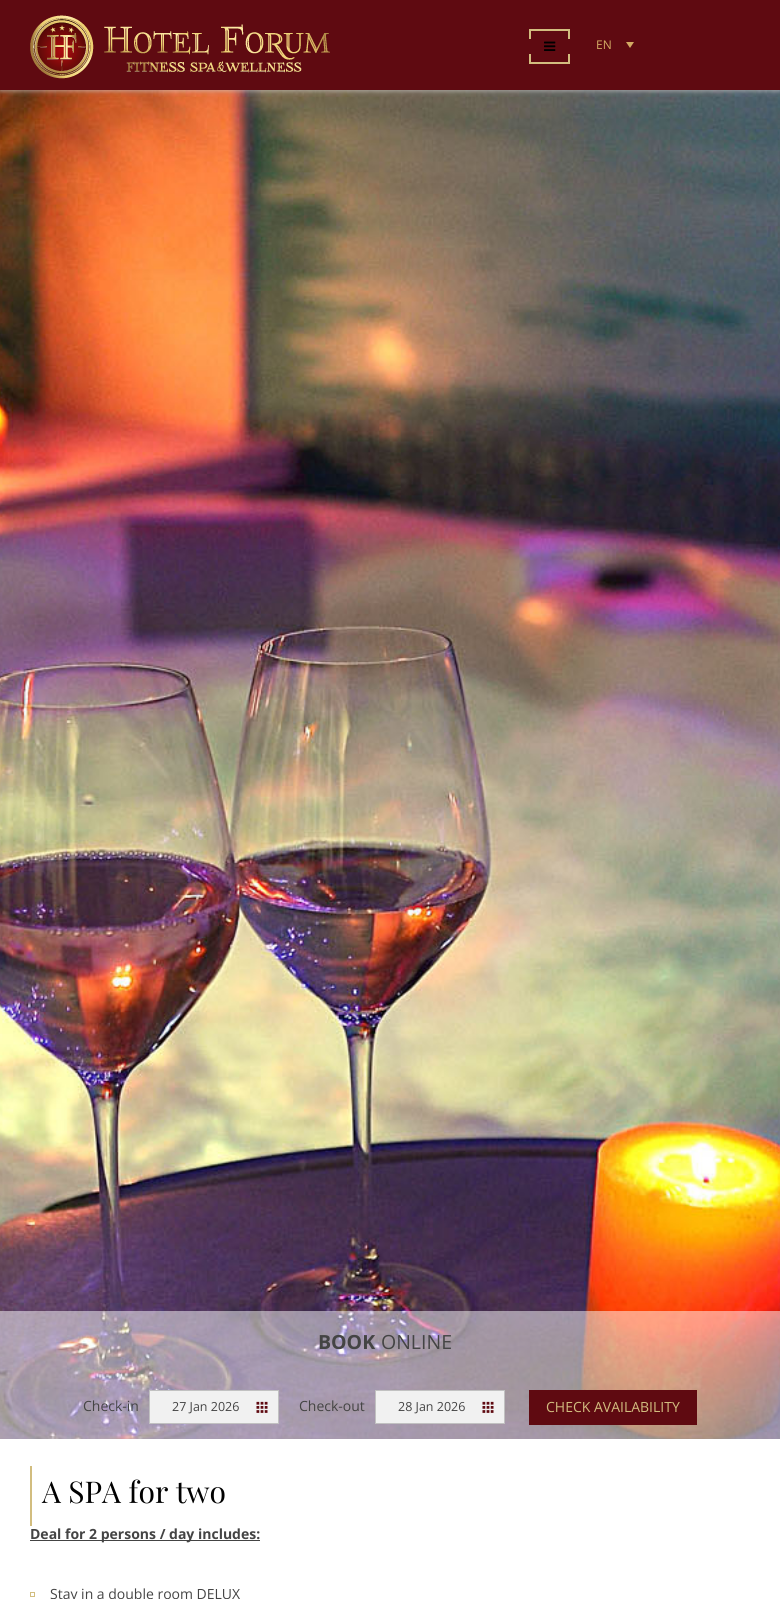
#include <cairo/cairo.h>
#include <math.h>
#include <stddef.h>

typedef struct { double x, y, w, h; unsigned color; } box_t;
static cairo_t *cr;

static void rgb(unsigned color)
{
	cairo_set_source_rgb(cr, (color >> 16) / 255.0, (color >> 8 & 255) / 255.0, (color & 255) / 255.0);
}

static void rrect(double x, double y, double w, double h, double r)
{
	cairo_new_sub_path(cr);
	cairo_arc(cr, x + w - r, y + h - r, r, 0, M_PI / 2);
	cairo_arc(cr, x + r, y + h - r, r, M_PI / 2, M_PI);
	cairo_arc(cr, x + r, y + r, r, M_PI, 1.5 * M_PI);
	cairo_arc(cr, x + w - r, y + r, r, 1.5 * M_PI, 2 * M_PI);
	cairo_close_path(cr);
}

static void soft_shadow(double x, double y, double w, double h, double r, double blur, double alpha)
{
	cairo_push_group_with_content(cr, CAIRO_CONTENT_ALPHA);
	cairo_set_operator(cr, CAIRO_OPERATOR_SOURCE);
	for (int i = 15; i >= -15 && fmin(w, h) + blur * i / 3 > 0; i -= 2) {
		double e = blur * i / 6;
		cairo_set_source_rgba(cr, 0, 0, 0, alpha * erfc((i - 1) / 8.5) / 2);
		rrect(x - e, y - e, w + 2 * e, h + 2 * e, fmax(0, fmin(r + e + blur * .6, fmin(w, h) / 2 + e)));
		cairo_fill(cr);
	}
	cairo_pattern_t *soft = cairo_pop_group(cr);
	cairo_mask(cr, soft);
	cairo_pattern_destroy(soft);
}

static void image(const char *path, double x, double y, double w, double h)
{
	cairo_surface_t *image = cairo_image_surface_create_from_png(path);
	cairo_save(cr);
	cairo_set_source_surface(cr, image, x, y);
	cairo_rectangle(cr, x, y, w, h);
	cairo_fill(cr);
	cairo_restore(cr);
	cairo_surface_destroy(image);
}

int main(void) {
	cairo_surface_t *surface = cairo_image_surface_create(CAIRO_FORMAT_RGB24, 780, 1599);
	cr = cairo_create(surface);
	cairo_font_options_t *options = cairo_font_options_create();
	cairo_font_options_set_hint_metrics(options, CAIRO_HINT_METRICS_OFF);
	cairo_font_options_set_hint_style(options, CAIRO_HINT_STYLE_NONE);
	cairo_set_font_options(cr, options);
	cairo_set_miter_limit(cr, 4);
	rgb(0xffffff);
	cairo_paint(cr);
	image("img/3.png", 0, 90, 780, 1349);
	rgb(0xcccccc);
	soft_shadow(0, 1, 780, 90, 0, 2.5, 0.7);
	rgb(0x5f0a11);
	cairo_rectangle(cr, 0, 0, 780, 90);
	cairo_fill(cr);
	image("img/1.png", 30, 15, 300, 64);
	{
		static const box_t items[] = {
			{529, 29, 41, 2, 0xd2bd7f},
			{568, 29, 2, 10, 0xd2bd7f},
			{529, 29, 2, 10, 0xd2bd7f},
		};
		for (size_t i = 0; i < sizeof items / sizeof *items; i++) {
			rgb(items[i].color);
			cairo_rectangle(cr, items[i].x, items[i].y, items[i].w, items[i].h);
			cairo_fill(cr);
		}
	}
	image("img/2.png", 544, 41, 12, 10);
	{
		static const box_t items[] = {
			{568, 54, 2, 10, 0xd2bd7f},
			{529, 62, 41, 2, 0xd2bd7f},
			{529, 54, 2, 10, 0xd2bd7f},
		};
		for (size_t i = 0; i < sizeof items / sizeof *items; i++) {
			rgb(items[i].color);
			cairo_rectangle(cr, items[i].x, items[i].y, items[i].w, items[i].h);
			cairo_fill(cr);
		}
	}
	rgb(0xd3ab64);
	cairo_new_path(cr);
	cairo_move_to(cr, 626, 42);
	cairo_line_to(cr, 634, 42);
	cairo_line_to(cr, 630, 48);
	cairo_close_path(cr);
	cairo_fill(cr);
	cairo_set_source_rgba(cr, 1, 1, 1, 0.5);
	cairo_rectangle(cr, 0, 1311, 780, 128);
	cairo_fill(cr);
	rgb(0xf1f1f1);
	cairo_rectangle(cr, 149.5, 1390.5, 129, 33);
	cairo_fill_preserve(cr);
	rgb(0xc1c1c1);
	cairo_set_line_width(cr, 1);
	cairo_stroke(cr);
	image("img/4.png", 256, 1401, 12, 12);
	rgb(0xf1f1f1);
	cairo_rectangle(cr, 375.5, 1390.5, 129, 33);
	cairo_fill_preserve(cr);
	rgb(0xc1c1c1);
	cairo_stroke(cr);
	image("img/4.png", 482, 1401, 12, 12);
	{
		static const box_t items[] = {
			{529, 1390, 168, 35, 0x5f0a11},
			{30, 1466, 2, 60, 0xd2bd7f},
			{30, 1540, 230, 1, 0x444444},
		};
		for (size_t i = 0; i < sizeof items / sizeof *items; i++) {
			rgb(items[i].color);
			cairo_rectangle(cr, items[i].x, items[i].y, items[i].w, items[i].h);
			cairo_fill(cr);
		}
	}
	cairo_rectangle(cr, 30.5, 1592.5, 4, 4);
	rgb(0xd2bd7f);
	cairo_stroke(cr);
	cairo_select_font_face(cr, "Open Sans", CAIRO_FONT_SLANT_NORMAL, CAIRO_FONT_WEIGHT_NORMAL);
	cairo_set_font_size(cr, 12);
	rgb(0xd3ab64);
	cairo_move_to(cr, 596, 49);
	cairo_show_text(cr, "EN");
	cairo_select_font_face(cr, "Open Sans", CAIRO_FONT_SLANT_NORMAL, CAIRO_FONT_WEIGHT_BOLD);
	cairo_set_font_size(cr, 19.5);
	rgb(0x444444);
	cairo_move_to(cr, 318, 1349);
	cairo_show_text(cr, "BOOK");
	cairo_select_font_face(cr, "Open Sans", CAIRO_FONT_SLANT_NORMAL, CAIRO_FONT_WEIGHT_NORMAL);
	cairo_move_to(cr, 381, 1349);
	cairo_show_text(cr, "ONLINE");
	cairo_set_font_size(cr, 14);
	cairo_move_to(cr, 83, 1411);
	cairo_show_text(cr, "Check-in");
	cairo_set_font_size(cr, 12.5);
	cairo_move_to(cr, 172, 1411);
	cairo_show_text(cr, "27 Jan 2026");
	cairo_set_font_size(cr, 14);
	cairo_move_to(cr, 299, 1411);
	cairo_show_text(cr, "Check-out");
	cairo_set_font_size(cr, 12.5);
	cairo_move_to(cr, 398, 1411);
	cairo_show_text(cr, "28 Jan 2026");
	cairo_set_font_size(cr, 14);
	rgb(0xd2bd7f);
	cairo_move_to(cr, 546, 1412);
	cairo_show_text(cr, "CHECK AVAILABILITY");
	cairo_select_font_face(cr, "Playfair Display", CAIRO_FONT_SLANT_NORMAL, CAIRO_FONT_WEIGHT_NORMAL);
	cairo_set_font_size(cr, 30);
	rgb(0x000000);
	cairo_move_to(cr, 42, 1503);
	cairo_show_text(cr, "A SPA for two");
	cairo_select_font_face(cr, "Open Sans", CAIRO_FONT_SLANT_NORMAL, CAIRO_FONT_WEIGHT_BOLD);
	cairo_set_font_size(cr, 14);
	rgb(0x444444);
	cairo_move_to(cr, 30, 1539);
	cairo_show_text(cr, "Deal for 2 persons / day includes:");
	cairo_select_font_face(cr, "Open Sans", CAIRO_FONT_SLANT_NORMAL, CAIRO_FONT_WEIGHT_NORMAL);
	cairo_move_to(cr, 50, 1599);
	cairo_show_text(cr, "Stay in a double room DELUX");
	cairo_surface_write_to_png(surface, "page.png");
	cairo_font_options_destroy(options);
	cairo_destroy(cr);
	cairo_surface_destroy(surface);
	return 0;
}
